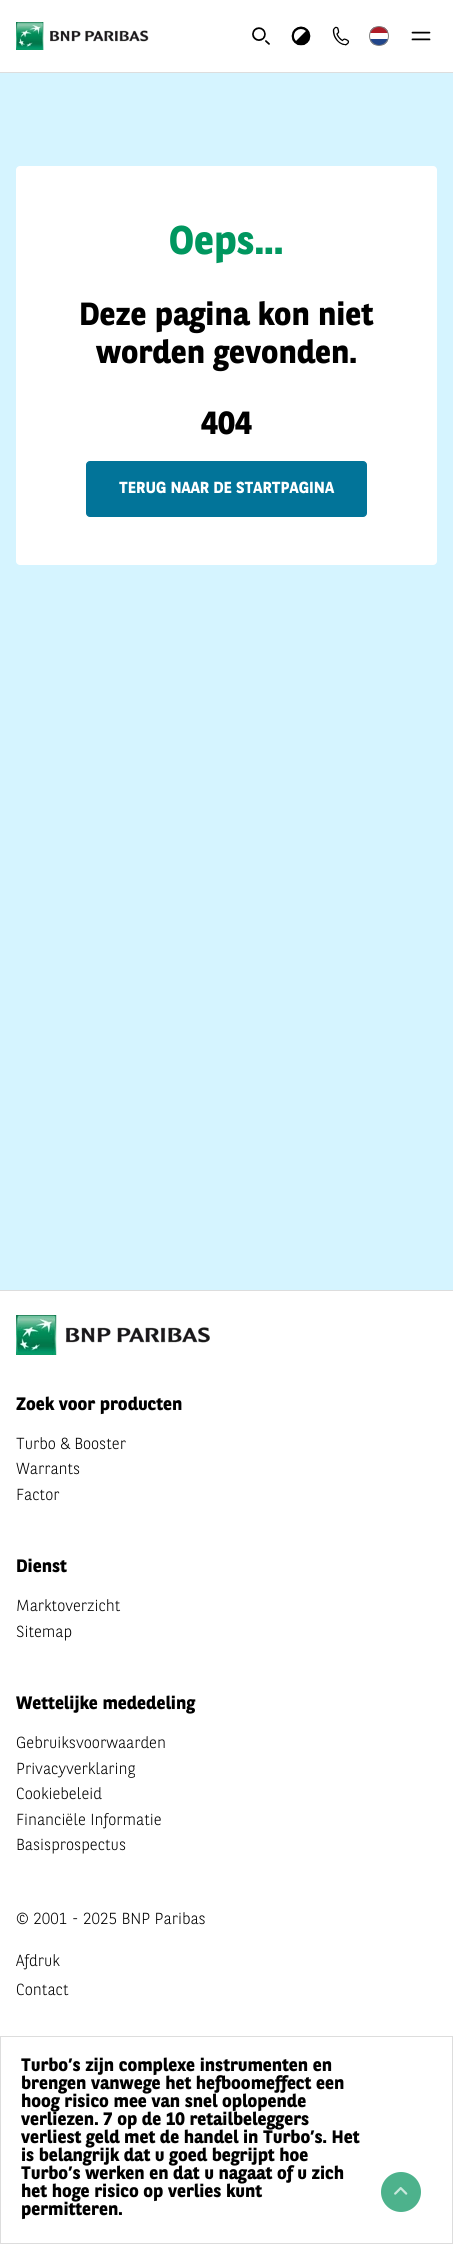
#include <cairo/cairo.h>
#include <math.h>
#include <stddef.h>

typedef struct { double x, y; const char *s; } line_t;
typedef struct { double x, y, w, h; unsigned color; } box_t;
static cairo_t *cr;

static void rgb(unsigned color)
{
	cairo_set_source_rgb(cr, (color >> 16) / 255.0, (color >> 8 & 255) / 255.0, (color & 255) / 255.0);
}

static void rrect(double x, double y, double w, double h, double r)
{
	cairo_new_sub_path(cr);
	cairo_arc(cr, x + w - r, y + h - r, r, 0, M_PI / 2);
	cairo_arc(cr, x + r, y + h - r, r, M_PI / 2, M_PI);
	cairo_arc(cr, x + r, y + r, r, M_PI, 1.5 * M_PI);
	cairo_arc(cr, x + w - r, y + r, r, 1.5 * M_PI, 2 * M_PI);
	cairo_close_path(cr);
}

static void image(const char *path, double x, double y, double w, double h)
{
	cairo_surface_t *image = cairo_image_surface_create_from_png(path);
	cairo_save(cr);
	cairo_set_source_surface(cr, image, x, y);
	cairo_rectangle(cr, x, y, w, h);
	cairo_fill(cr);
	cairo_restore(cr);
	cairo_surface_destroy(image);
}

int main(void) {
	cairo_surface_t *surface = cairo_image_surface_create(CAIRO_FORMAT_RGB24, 453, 2244);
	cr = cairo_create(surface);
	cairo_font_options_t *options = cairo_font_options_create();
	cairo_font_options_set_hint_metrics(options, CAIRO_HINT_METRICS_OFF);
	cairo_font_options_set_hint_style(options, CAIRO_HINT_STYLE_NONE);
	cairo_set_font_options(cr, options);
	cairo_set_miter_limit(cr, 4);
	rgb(0xd5f4ff);
	cairo_paint(cr);
	rgb(0xffffff);
	cairo_rectangle(cr, 0, 0, 453, 72);
	cairo_fill(cr);
	rgb(0xdddddd);
	cairo_rectangle(cr, 0, 72, 453, 1);
	cairo_fill(cr);
	image("img/1.png", 16, 22, 133, 28);
	image("img/2.png", 252, 27, 18, 18);
	image("img/3.png", 291, 26, 20, 20);
	image("img/4.png", 332, 26, 18, 20);
	cairo_save(cr);
	rrect(369, 26, 20, 20, 10);
	cairo_clip(cr);
	{
		static const box_t items[] = {
			{370, 27, 18, 18, 0x21468b},
			{370, 27, 18, 12, 0xffffff},
			{370, 27, 18, 6, 0xae1c28},
		};
		for (size_t i = 0; i < sizeof items / sizeof *items; i++) {
			rgb(items[i].color);
			cairo_rectangle(cr, items[i].x, items[i].y, items[i].w, items[i].h);
			cairo_fill(cr);
		}
	}
	cairo_restore(cr);
	cairo_arc(cr, 379, 36, 9.5, 0, 2 * M_PI);
	rgb(0x808080);
	cairo_set_line_width(cr, 1);
	cairo_stroke(cr);
	image("img/5.png", 411, 31, 20, 10);
	rgb(0xffffff);
	rrect(16, 166, 421, 399, 4);
	cairo_fill(cr);
	rgb(0x027499);
	rrect(86.5, 461.5, 280, 55, 3.5);
	cairo_fill_preserve(cr);
	cairo_stroke(cr);
	rgb(0xffffff);
	cairo_rectangle(cr, 0.5, 2036.5, 452, 207);
	cairo_fill_preserve(cr);
	rgb(0xdddddd);
	cairo_stroke(cr);
	rgb(0x4db28c);
	cairo_arc(cr, 401, 2192, 20, 0, 2 * M_PI);
	cairo_fill(cr);
	image("img/6.png", 394, 2187, 14, 8);
	rgb(0xffffff);
	cairo_rectangle(cr, 0, 1291, 453, 745);
	cairo_fill(cr);
	rgb(0xdddddd);
	cairo_rectangle(cr, 0, 1290, 453, 1);
	cairo_fill(cr);
	image("img/7.png", 16, 1315, 194, 40);
	cairo_select_font_face(cr, "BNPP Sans", CAIRO_FONT_SLANT_NORMAL, CAIRO_FONT_WEIGHT_BOLD);
	cairo_set_font_size(cr, 40);
	rgb(0x00975f);
	cairo_move_to(cr, 169, 254);
	cairo_show_text(cr, "Oeps...");
	cairo_set_font_size(cr, 32);
	rgb(0x000000);
	{
		static const line_t items[] = {
			{79, 325, "Deze pagina kon niet"},
			{96, 363, "worden gevonden."},
			{201, 434, "404"},
		};
		for (size_t i = 0; i < sizeof items / sizeof *items; i++) {
			cairo_move_to(cr, items[i].x, items[i].y);
			cairo_show_text(cr, items[i].s);
		}
	}
	cairo_set_font_size(cr, 16);
	rgb(0xffffff);
	cairo_move_to(cr, 119, 493);
	cairo_show_text(cr, "TERUG NAAR DE STARTPAGINA");
	cairo_set_font_size(cr, 18);
	rgb(0x000000);
	cairo_move_to(cr, 16, 1410);
	cairo_show_text(cr, "Zoek voor producten");
	cairo_select_font_face(cr, "BNPP Sans Light", CAIRO_FONT_SLANT_NORMAL, CAIRO_FONT_WEIGHT_NORMAL);
	cairo_set_font_size(cr, 16);
	{
		static const line_t items[] = {
			{16, 1449, "Turbo & Booster"},
			{16, 1474, "Warrants"},
			{16, 1500, "Factor"},
		};
		for (size_t i = 0; i < sizeof items / sizeof *items; i++) {
			cairo_move_to(cr, items[i].x, items[i].y);
			cairo_show_text(cr, items[i].s);
		}
	}
	cairo_select_font_face(cr, "BNPP Sans", CAIRO_FONT_SLANT_NORMAL, CAIRO_FONT_WEIGHT_BOLD);
	cairo_set_font_size(cr, 18);
	cairo_move_to(cr, 16, 1572);
	cairo_show_text(cr, "Dienst");
	cairo_select_font_face(cr, "BNPP Sans Light", CAIRO_FONT_SLANT_NORMAL, CAIRO_FONT_WEIGHT_NORMAL);
	cairo_set_font_size(cr, 16);
	cairo_move_to(cr, 16, 1611);
	cairo_show_text(cr, "Marktoverzicht");
	cairo_move_to(cr, 16, 1637);
	cairo_show_text(cr, "Sitemap");
	cairo_select_font_face(cr, "BNPP Sans", CAIRO_FONT_SLANT_NORMAL, CAIRO_FONT_WEIGHT_BOLD);
	cairo_set_font_size(cr, 18);
	cairo_move_to(cr, 16, 1709);
	cairo_show_text(cr, "Wettelijke mededeling");
	cairo_select_font_face(cr, "BNPP Sans Light", CAIRO_FONT_SLANT_NORMAL, CAIRO_FONT_WEIGHT_NORMAL);
	cairo_set_font_size(cr, 16);
	{
		static const line_t items[] = {
			{16, 1748, "Gebruiksvoorwaarden"},
			{16, 1774, "Privacyverklaring"},
			{16, 1799, "Cookiebeleid"},
			{16, 1825, "Financiële Informatie"},
			{16, 1850, "Basisprospectus"},
			{16, 1924, "© 2001 - 2025 BNP Paribas"},
			{16, 1966, "Afdruk"},
			{16, 1995, "Contact"},
		};
		for (size_t i = 0; i < sizeof items / sizeof *items; i++) {
			cairo_move_to(cr, items[i].x, items[i].y);
			cairo_show_text(cr, items[i].s);
		}
	}
	cairo_select_font_face(cr, "BNPP Sans", CAIRO_FONT_SLANT_NORMAL, CAIRO_FONT_WEIGHT_BOLD);
	cairo_set_font_size(cr, 18);
	{
		static const line_t items[] = {
			{21, 2071, "Turbo’s zijn complexe instrumenten en"},
			{21, 2089, "brengen vanwege het hefboomeffect een"},
			{21, 2107, "hoog risico mee van snel oplopende"},
			{21, 2125, "verliezen. 7 op de 10 retailbeleggers"},
			{21, 2143, "verliest geld met de handel in Turbo’s. Het"},
			{21, 2161, "is belangrijk dat u goed begrijpt hoe"},
			{21, 2179, "Turbo’s werken en dat u nagaat of u zich"},
			{21, 2197, "het hoge risico op verlies kunt"},
			{21, 2215, "permitteren."},
		};
		for (size_t i = 0; i < sizeof items / sizeof *items; i++) {
			cairo_move_to(cr, items[i].x, items[i].y);
			cairo_show_text(cr, items[i].s);
		}
	}
	cairo_surface_write_to_png(surface, "page.png");
	cairo_font_options_destroy(options);
	cairo_destroy(cr);
	cairo_surface_destroy(surface);
	return 0;
}
